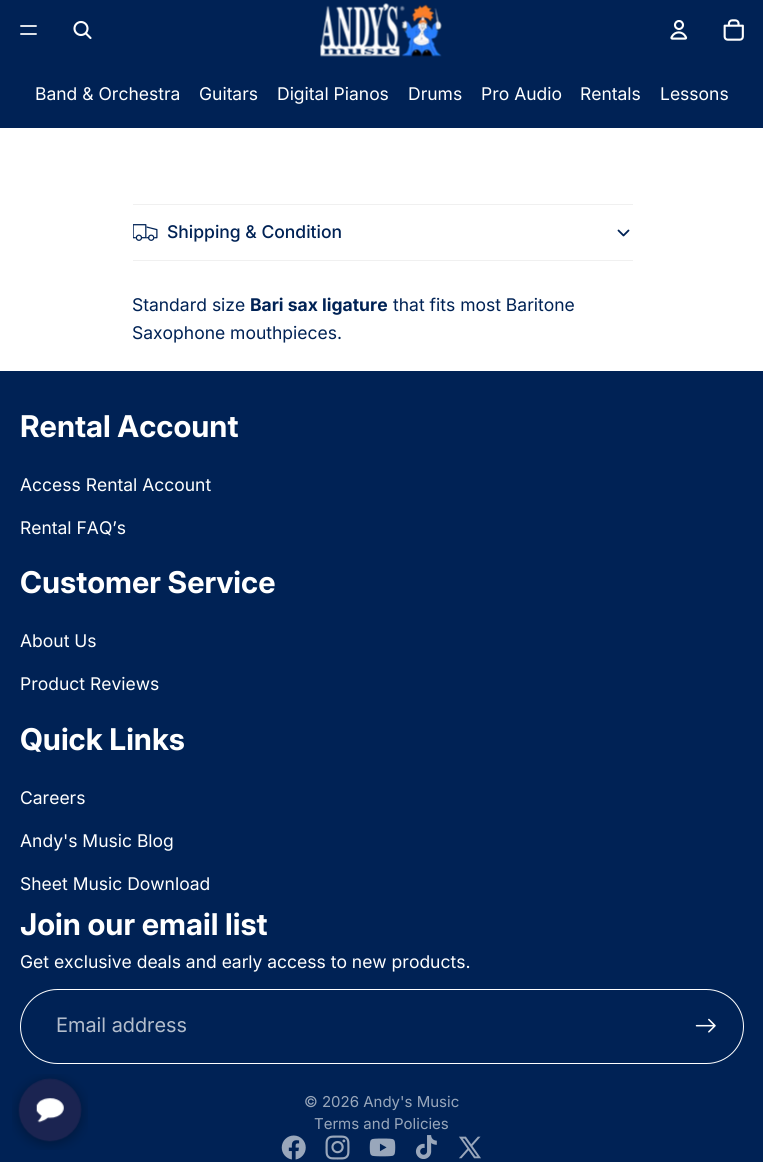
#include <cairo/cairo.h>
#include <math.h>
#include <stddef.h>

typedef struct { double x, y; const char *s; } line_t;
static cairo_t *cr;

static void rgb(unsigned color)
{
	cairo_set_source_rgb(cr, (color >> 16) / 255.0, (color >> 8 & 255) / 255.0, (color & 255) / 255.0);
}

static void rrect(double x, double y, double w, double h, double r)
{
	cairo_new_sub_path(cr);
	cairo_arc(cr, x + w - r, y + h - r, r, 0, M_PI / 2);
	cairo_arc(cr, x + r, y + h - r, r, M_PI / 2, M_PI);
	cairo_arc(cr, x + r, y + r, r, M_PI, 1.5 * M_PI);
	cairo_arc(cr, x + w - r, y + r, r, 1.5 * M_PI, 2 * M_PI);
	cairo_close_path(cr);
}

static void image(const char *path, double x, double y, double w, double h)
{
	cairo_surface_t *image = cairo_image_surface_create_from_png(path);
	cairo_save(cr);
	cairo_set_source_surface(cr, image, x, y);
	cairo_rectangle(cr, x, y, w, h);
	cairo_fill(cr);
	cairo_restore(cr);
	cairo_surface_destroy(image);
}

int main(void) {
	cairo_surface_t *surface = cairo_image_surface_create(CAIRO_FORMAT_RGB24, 763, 1162);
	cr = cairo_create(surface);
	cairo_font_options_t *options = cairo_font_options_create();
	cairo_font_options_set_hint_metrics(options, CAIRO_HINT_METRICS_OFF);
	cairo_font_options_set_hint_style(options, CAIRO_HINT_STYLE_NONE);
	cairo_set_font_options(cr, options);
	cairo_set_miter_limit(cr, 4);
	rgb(0xffffff);
	cairo_paint(cr);
	rgb(0x002255);
	cairo_rectangle(cr, 0, 0, 763, 128);
	cairo_fill(cr);
	cairo_new_path(cr);
	cairo_move_to(cr, 21, 26);
	cairo_line_to(cr, 36, 26);
	cairo_move_to(cr, 21, 34);
	cairo_line_to(cr, 36, 34);
	rgb(0xffffff);
	cairo_set_line_width(cr, 1.8);
	cairo_set_line_cap(cr, CAIRO_LINE_CAP_ROUND);
	cairo_stroke(cr);
	cairo_arc(cr, 81, 28.5, 6.5, 0, 2 * M_PI);
	cairo_set_line_width(cr, 2.1);
	cairo_set_line_cap(cr, CAIRO_LINE_CAP_BUTT);
	cairo_stroke(cr);
	cairo_new_path(cr);
	cairo_move_to(cr, 86, 33.5);
	cairo_line_to(cr, 90.5, 38);
	cairo_set_line_cap(cr, CAIRO_LINE_CAP_ROUND);
	cairo_set_line_join(cr, CAIRO_LINE_JOIN_ROUND);
	cairo_stroke(cr);
	image("img/1.png", 320, 3, 122, 54);
	image("img/2.png", 670, 20, 18, 20);
	image("img/3.png", 723, 19, 21, 22);
	rgb(0xf0f0f0);
	cairo_rectangle(cr, 133, 204, 500, 1);
	cairo_fill(cr);
	cairo_rectangle(cr, 133, 260, 500, 1);
	cairo_fill(cr);
	image("img/4.png", 133, 224, 25, 17);
	cairo_new_path(cr);
	cairo_move_to(cr, 628.5, 230.5);
	cairo_line_to(cr, 623.5, 235.5);
	cairo_line_to(cr, 618.5, 230.5);
	rgb(0x002255);
	cairo_set_line_width(cr, 1.8);
	cairo_stroke(cr);
	cairo_rectangle(cr, 0, 371, 763, 791);
	cairo_fill(cr);
	rrect(20.5, 989.5, 723, 74, 37);
	rgb(0xffffff);
	cairo_set_line_width(cr, 1);
	cairo_set_line_cap(cr, CAIRO_LINE_CAP_BUTT);
	cairo_set_line_join(cr, CAIRO_LINE_JOIN_MITER);
	cairo_stroke(cr);
	image("img/5.png", 695, 1018, 21, 15);
	image("img/6.png", 12, 1074, 76, 76);
	image("img/7.png", 281, 1135, 25, 25);
	image("img/8.png", 325, 1135, 25, 25);
	image("img/9.png", 369, 1138, 27, 19);
	image("img/10.png", 415, 1135, 22, 24);
	image("img/11.png", 459, 1136, 22, 23);
	cairo_select_font_face(cr, "Inter", CAIRO_FONT_SLANT_NORMAL, CAIRO_FONT_WEIGHT_NORMAL);
	cairo_set_font_size(cr, 17.5);
	{
		static const line_t items[] = {
			{35, 100, "Band & Orchestra"},
			{199, 100, "Guitars"},
			{277, 100, "Digital Pianos"},
			{408, 100, "Drums"},
			{481, 100, "Pro Audio"},
			{580, 100, "Rentals"},
			{660, 100, "Lessons"},
		};
		for (size_t i = 0; i < sizeof items / sizeof *items; i++) {
			cairo_move_to(cr, items[i].x, items[i].y);
			cairo_show_text(cr, items[i].s);
		}
	}
	cairo_select_font_face(cr, "Inter Medium", CAIRO_FONT_SLANT_NORMAL, CAIRO_FONT_WEIGHT_NORMAL);
	rgb(0x002255);
	cairo_move_to(cr, 167, 238);
	cairo_show_text(cr, "Shipping & Condition");
	cairo_select_font_face(cr, "Inter", CAIRO_FONT_SLANT_NORMAL, CAIRO_FONT_WEIGHT_NORMAL);
	cairo_move_to(cr, 132, 311);
	cairo_show_text(cr, "Standard size");
	cairo_select_font_face(cr, "Inter", CAIRO_FONT_SLANT_NORMAL, CAIRO_FONT_WEIGHT_BOLD);
	cairo_move_to(cr, 250, 311);
	cairo_show_text(cr, "Bari sax ligature");
	cairo_select_font_face(cr, "Inter", CAIRO_FONT_SLANT_NORMAL, CAIRO_FONT_WEIGHT_NORMAL);
	cairo_move_to(cr, 393, 311);
	cairo_show_text(cr, "that fits most Baritone");
	cairo_move_to(cr, 132, 339);
	cairo_show_text(cr, "Saxophone mouthpieces.");
	cairo_select_font_face(cr, "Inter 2", CAIRO_FONT_SLANT_NORMAL, CAIRO_FONT_WEIGHT_BOLD);
	cairo_set_font_size(cr, 30);
	rgb(0xffffff);
	cairo_move_to(cr, 20, 437);
	cairo_show_text(cr, "Rental Account");
	cairo_select_font_face(cr, "Inter", CAIRO_FONT_SLANT_NORMAL, CAIRO_FONT_WEIGHT_NORMAL);
	cairo_set_font_size(cr, 17.5);
	cairo_move_to(cr, 20, 491);
	cairo_show_text(cr, "Access Rental Account");
	cairo_move_to(cr, 20, 534);
	cairo_show_text(cr, "Rental FAQ’s");
	cairo_select_font_face(cr, "Inter 2", CAIRO_FONT_SLANT_NORMAL, CAIRO_FONT_WEIGHT_BOLD);
	cairo_set_font_size(cr, 30);
	cairo_move_to(cr, 20, 593);
	cairo_show_text(cr, "Customer Service");
	cairo_select_font_face(cr, "Inter", CAIRO_FONT_SLANT_NORMAL, CAIRO_FONT_WEIGHT_NORMAL);
	cairo_set_font_size(cr, 17.5);
	cairo_move_to(cr, 20, 647);
	cairo_show_text(cr, "About Us");
	cairo_move_to(cr, 20, 690);
	cairo_show_text(cr, "Product Reviews");
	cairo_select_font_face(cr, "Inter 2", CAIRO_FONT_SLANT_NORMAL, CAIRO_FONT_WEIGHT_BOLD);
	cairo_set_font_size(cr, 30);
	cairo_move_to(cr, 20, 750);
	cairo_show_text(cr, "Quick Links");
	cairo_select_font_face(cr, "Inter", CAIRO_FONT_SLANT_NORMAL, CAIRO_FONT_WEIGHT_NORMAL);
	cairo_set_font_size(cr, 17.5);
	{
		static const line_t items[] = {
			{20, 804, "Careers"},
			{20, 847, "Andy's Music Blog"},
			{20, 890, "Sheet Music Download"},
		};
		for (size_t i = 0; i < sizeof items / sizeof *items; i++) {
			cairo_move_to(cr, items[i].x, items[i].y);
			cairo_show_text(cr, items[i].s);
		}
	}
	cairo_select_font_face(cr, "Inter 2", CAIRO_FONT_SLANT_NORMAL, CAIRO_FONT_WEIGHT_BOLD);
	cairo_set_font_size(cr, 30);
	cairo_move_to(cr, 20, 935);
	cairo_show_text(cr, "Join our email list");
	cairo_select_font_face(cr, "Inter", CAIRO_FONT_SLANT_NORMAL, CAIRO_FONT_WEIGHT_NORMAL);
	cairo_set_font_size(cr, 17.5);
	cairo_move_to(cr, 20, 968);
	cairo_show_text(cr, "Get exclusive deals and early access to new products.");
	cairo_select_font_face(cr, "Inter 2", CAIRO_FONT_SLANT_NORMAL, CAIRO_FONT_WEIGHT_NORMAL);
	cairo_set_font_size(cr, 20);
	rgb(0xb3bdcc);
	cairo_move_to(cr, 56, 1032);
	cairo_show_text(cr, "Email address");
	cairo_select_font_face(cr, "Inter", CAIRO_FONT_SLANT_NORMAL, CAIRO_FONT_WEIGHT_NORMAL);
	cairo_set_font_size(cr, 15);
	rgb(0x99a7bb);
	cairo_move_to(cr, 304, 1107);
	cairo_show_text(cr, "© 2026 Andy's Music");
	cairo_move_to(cr, 314, 1129);
	cairo_show_text(cr, "Terms and Policies");
	cairo_surface_write_to_png(surface, "page.png");
	cairo_font_options_destroy(options);
	cairo_destroy(cr);
	cairo_surface_destroy(surface);
	return 0;
}
